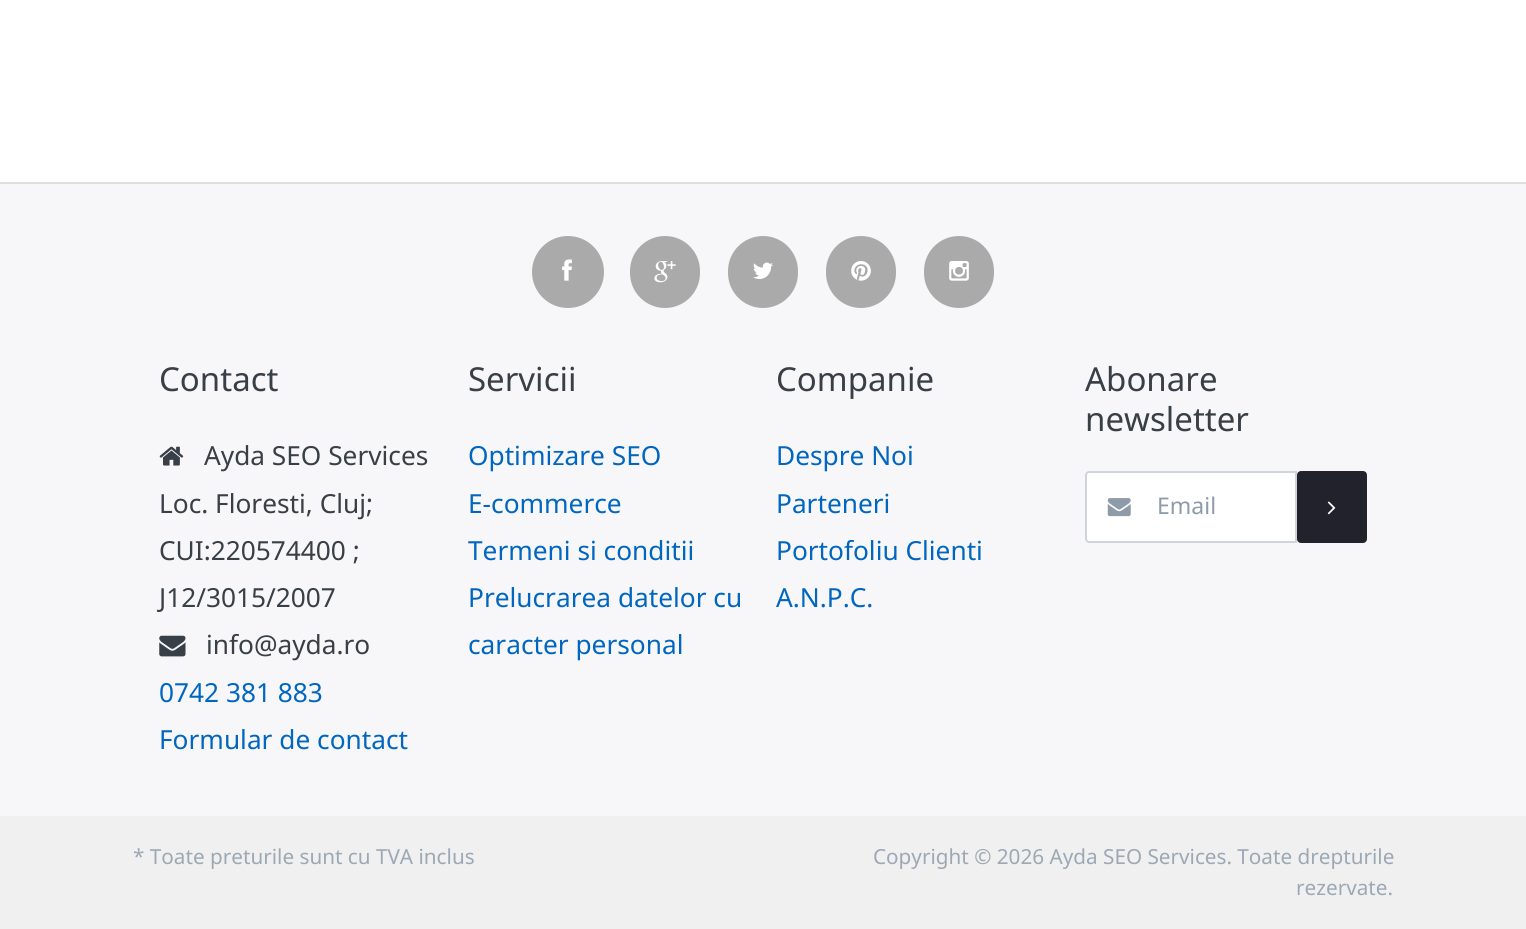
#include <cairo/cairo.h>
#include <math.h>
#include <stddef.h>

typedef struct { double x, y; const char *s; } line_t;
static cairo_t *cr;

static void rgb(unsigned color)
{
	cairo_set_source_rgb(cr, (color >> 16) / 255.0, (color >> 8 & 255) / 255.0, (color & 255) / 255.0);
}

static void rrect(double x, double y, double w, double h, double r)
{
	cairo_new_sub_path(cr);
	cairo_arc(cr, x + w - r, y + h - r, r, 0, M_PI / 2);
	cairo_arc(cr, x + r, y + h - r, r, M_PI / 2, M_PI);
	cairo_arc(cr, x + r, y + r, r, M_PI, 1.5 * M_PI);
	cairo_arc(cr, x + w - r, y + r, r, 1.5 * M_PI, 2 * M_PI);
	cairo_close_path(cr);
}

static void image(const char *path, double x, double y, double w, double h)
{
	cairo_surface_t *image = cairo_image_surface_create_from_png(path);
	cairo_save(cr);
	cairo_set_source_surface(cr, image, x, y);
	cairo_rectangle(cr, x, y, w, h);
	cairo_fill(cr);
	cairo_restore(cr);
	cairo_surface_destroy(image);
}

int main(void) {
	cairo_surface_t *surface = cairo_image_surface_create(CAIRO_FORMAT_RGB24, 1526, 929);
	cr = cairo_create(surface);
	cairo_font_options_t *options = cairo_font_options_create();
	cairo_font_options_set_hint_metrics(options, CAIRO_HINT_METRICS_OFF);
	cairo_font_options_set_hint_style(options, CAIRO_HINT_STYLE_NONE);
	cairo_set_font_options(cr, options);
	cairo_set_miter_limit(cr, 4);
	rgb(0xffffff);
	cairo_paint(cr);
	rgb(0xf7f7f9);
	cairo_rectangle(cr, 0, 184, 1526, 632);
	cairo_fill(cr);
	rgb(0xdedee0);
	cairo_rectangle(cr, 0, 182, 1526, 2);
	cairo_fill(cr);
	rgb(0xaaaaaa);
	cairo_arc(cr, 568, 272, 36, 0, 2 * M_PI);
	cairo_fill(cr);
	image("img/1.png", 562, 259, 10, 22);
	rrect(630, 236, 70, 72, 35);
	cairo_fill(cr);
	image("img/2.png", 654, 261, 22, 22);
	rrect(728, 236, 70, 72, 35);
	cairo_fill(cr);
	image("img/3.png", 753, 262, 20, 17);
	rrect(826, 236, 70, 72, 35);
	cairo_fill(cr);
	image("img/4.png", 851, 261, 20, 20);
	rrect(924, 236, 70, 72, 35);
	cairo_fill(cr);
	image("img/5.png", 949, 261, 20, 20);
	image("img/6.png", 159, 446, 25, 20);
	image("img/7.png", 159, 635, 27, 22);
	rgb(0xffffff);
	cairo_new_path(cr);
	cairo_move_to(cr, 1089, 472);
	cairo_line_to(cr, 1296, 472);
	cairo_line_to(cr, 1296, 542);
	cairo_line_to(cr, 1089, 542);
	cairo_curve_to(cr, 1087.5, 542, 1086, 540.5, 1086, 539);
	cairo_line_to(cr, 1086, 475);
	cairo_curve_to(cr, 1086, 473.5, 1087.5, 472, 1089, 472);
	cairo_close_path(cr);
	cairo_fill_preserve(cr);
	rgb(0xced4da);
	cairo_stroke(cr);
	image("img/8.png", 1107, 498, 24, 19);
	rgb(0x22222c);
	rrect(1298, 472, 68, 70, 3);
	cairo_fill_preserve(cr);
	cairo_stroke(cr);
	image("img/9.png", 1327, 501, 9, 14);
	rgb(0xf0f0f1);
	cairo_rectangle(cr, 0, 816, 1526, 113);
	cairo_fill(cr);
	cairo_select_font_face(cr, "Noto Sans", CAIRO_FONT_SLANT_NORMAL, CAIRO_FONT_WEIGHT_NORMAL);
	cairo_set_font_size(cr, 33);
	rgb(0x393f46);
	cairo_move_to(cr, 159, 391);
	cairo_show_text(cr, "Contact");
	cairo_set_font_size(cr, 26.25);
	{
		static const line_t items[] = {
			{204, 465, "Ayda SEO Services"},
			{159, 513, "Loc. Floresti, Cluj;"},
			{159, 560, "CUI:220574400 ;"},
			{159, 607, "J12/3015/2007"},
			{206, 654, "info@ayda.ro"},
		};
		for (size_t i = 0; i < sizeof items / sizeof *items; i++) {
			cairo_move_to(cr, items[i].x, items[i].y);
			cairo_show_text(cr, items[i].s);
		}
	}
	rgb(0x0066c0);
	cairo_move_to(cr, 159, 702);
	cairo_show_text(cr, "0742 381 883");
	cairo_move_to(cr, 159, 749);
	cairo_show_text(cr, "Formular de contact");
	cairo_set_font_size(cr, 33);
	rgb(0x393f46);
	cairo_move_to(cr, 468, 391);
	cairo_show_text(cr, "Servicii");
	cairo_set_font_size(cr, 26.25);
	rgb(0x0066c0);
	{
		static const line_t items[] = {
			{468, 465, "Optimizare SEO"},
			{468, 513, "E-commerce"},
			{468, 560, "Termeni si conditii"},
			{468, 607, "Prelucrarea datelor cu"},
			{468, 654, "caracter personal"},
		};
		for (size_t i = 0; i < sizeof items / sizeof *items; i++) {
			cairo_move_to(cr, items[i].x, items[i].y);
			cairo_show_text(cr, items[i].s);
		}
	}
	cairo_set_font_size(cr, 33);
	rgb(0x393f46);
	cairo_move_to(cr, 776, 391);
	cairo_show_text(cr, "Companie");
	cairo_set_font_size(cr, 26.25);
	rgb(0x0066c0);
	{
		static const line_t items[] = {
			{776, 465, "Despre Noi"},
			{776, 513, "Parteneri"},
			{776, 560, "Portofoliu Clienti"},
			{776, 607, "A.N.P.C."},
		};
		for (size_t i = 0; i < sizeof items / sizeof *items; i++) {
			cairo_move_to(cr, items[i].x, items[i].y);
			cairo_show_text(cr, items[i].s);
		}
	}
	cairo_set_font_size(cr, 33);
	rgb(0x393f46);
	cairo_move_to(cr, 1085, 391);
	cairo_show_text(cr, "Abonare");
	cairo_move_to(cr, 1085, 431);
	cairo_show_text(cr, "newsletter");
	cairo_set_font_size(cr, 23);
	rgb(0x8d9ba9);
	cairo_move_to(cr, 1157, 514);
	cairo_show_text(cr, "Email");
	cairo_set_font_size(cr, 20.7);
	rgb(0x9ca8b4);
	{
		static const line_t items[] = {
			{133, 864, "* Toate preturile sunt cu TVA inclus"},
			{873, 864, "Copyright © 2026 Ayda SEO Services. Toate drepturile"},
			{1296, 895, "rezervate."},
		};
		for (size_t i = 0; i < sizeof items / sizeof *items; i++) {
			cairo_move_to(cr, items[i].x, items[i].y);
			cairo_show_text(cr, items[i].s);
		}
	}
	cairo_surface_write_to_png(surface, "page.png");
	cairo_font_options_destroy(options);
	cairo_destroy(cr);
	cairo_surface_destroy(surface);
	return 0;
}
